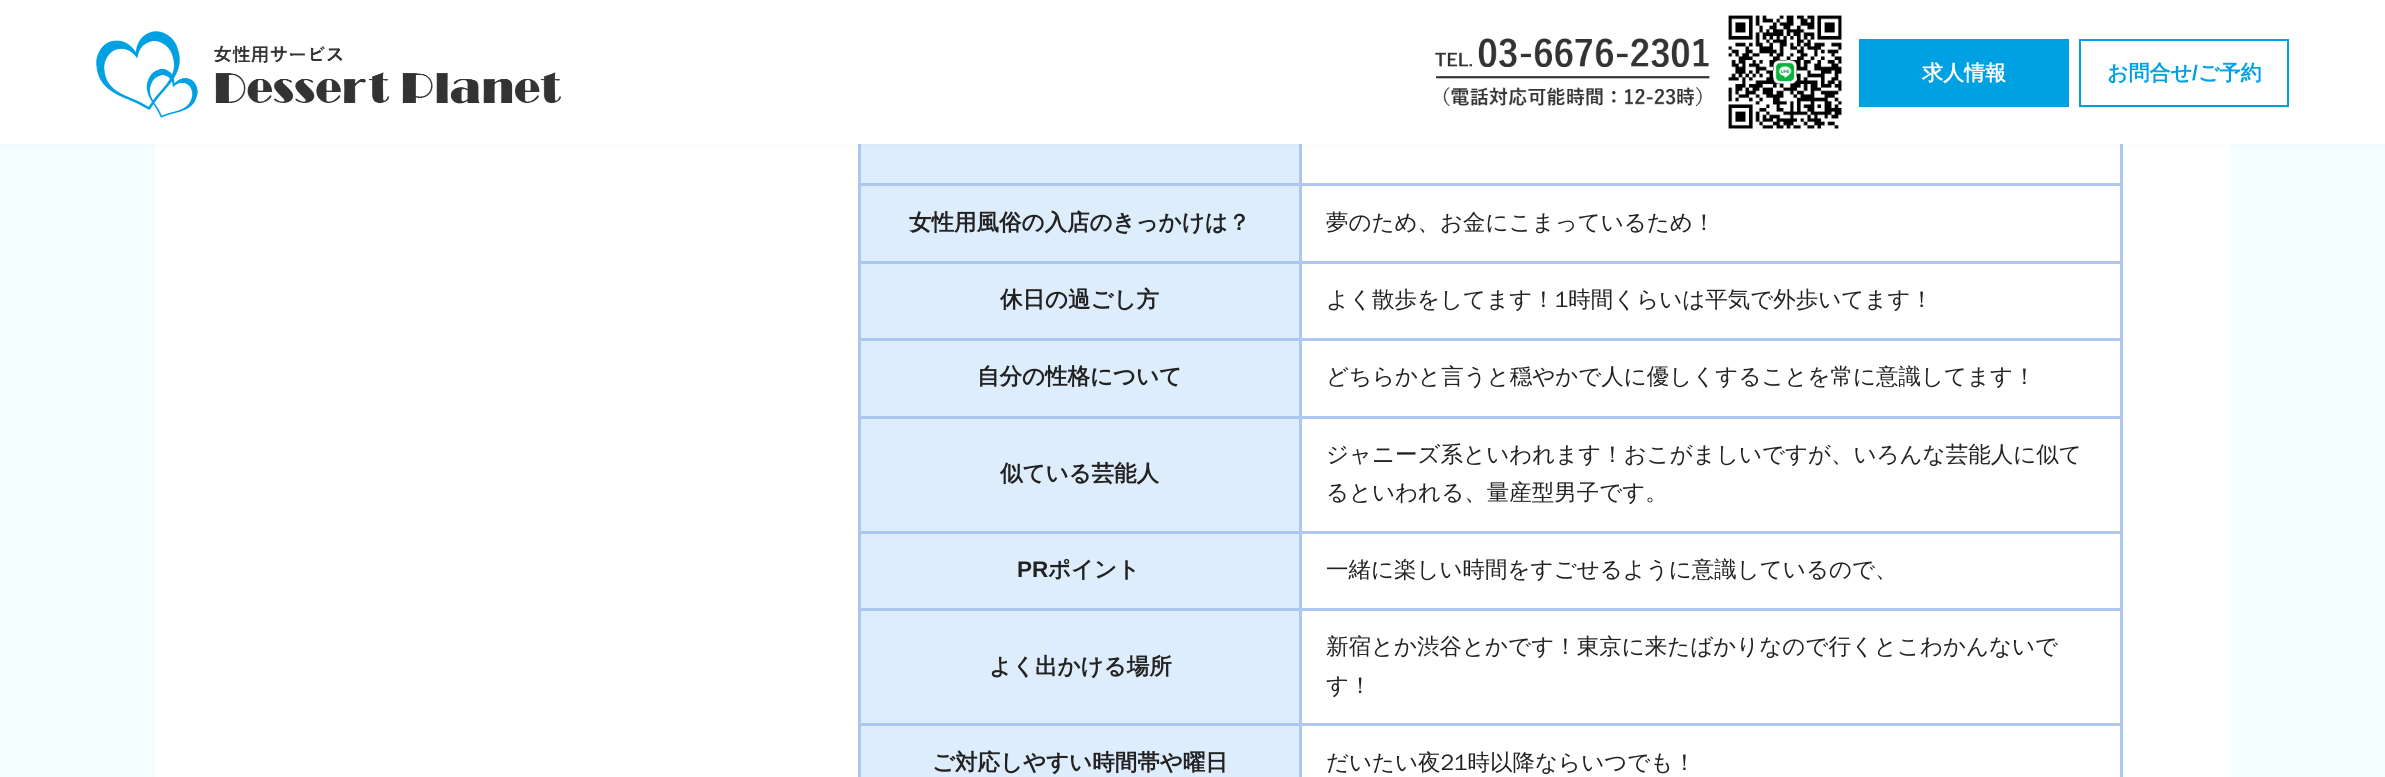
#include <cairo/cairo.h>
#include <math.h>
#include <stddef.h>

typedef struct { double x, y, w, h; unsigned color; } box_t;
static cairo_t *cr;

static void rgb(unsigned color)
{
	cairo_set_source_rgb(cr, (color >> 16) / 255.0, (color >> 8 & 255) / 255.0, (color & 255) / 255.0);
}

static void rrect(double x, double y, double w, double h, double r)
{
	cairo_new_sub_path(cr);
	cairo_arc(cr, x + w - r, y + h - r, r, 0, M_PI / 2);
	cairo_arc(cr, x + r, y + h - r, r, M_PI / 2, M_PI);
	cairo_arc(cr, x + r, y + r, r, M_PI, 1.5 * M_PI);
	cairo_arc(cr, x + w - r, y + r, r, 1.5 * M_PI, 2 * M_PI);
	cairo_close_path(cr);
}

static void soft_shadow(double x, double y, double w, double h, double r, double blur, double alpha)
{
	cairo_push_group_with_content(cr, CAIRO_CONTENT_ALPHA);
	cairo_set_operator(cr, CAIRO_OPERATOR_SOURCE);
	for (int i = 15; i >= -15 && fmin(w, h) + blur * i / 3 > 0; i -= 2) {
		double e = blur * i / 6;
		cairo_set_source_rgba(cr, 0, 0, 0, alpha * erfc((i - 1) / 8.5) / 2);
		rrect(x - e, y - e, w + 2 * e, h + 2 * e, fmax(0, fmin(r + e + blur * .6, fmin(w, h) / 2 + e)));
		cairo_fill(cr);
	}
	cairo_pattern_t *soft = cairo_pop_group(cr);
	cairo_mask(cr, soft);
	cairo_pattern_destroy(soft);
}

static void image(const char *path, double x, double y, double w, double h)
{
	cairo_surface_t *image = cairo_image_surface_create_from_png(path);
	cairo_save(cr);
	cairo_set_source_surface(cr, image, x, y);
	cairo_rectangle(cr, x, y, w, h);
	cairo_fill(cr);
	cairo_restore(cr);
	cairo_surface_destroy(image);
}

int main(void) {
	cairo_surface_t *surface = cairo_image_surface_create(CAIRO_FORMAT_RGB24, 2385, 777);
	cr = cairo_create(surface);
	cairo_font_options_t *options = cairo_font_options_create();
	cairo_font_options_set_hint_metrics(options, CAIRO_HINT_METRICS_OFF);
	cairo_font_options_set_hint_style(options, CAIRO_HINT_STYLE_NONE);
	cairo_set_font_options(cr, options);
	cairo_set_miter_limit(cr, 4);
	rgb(0xf2feff);
	cairo_paint(cr);
	{
		static const box_t items[] = {
			{155, 144, 2076, 633, 0xffffff},
			{861, 144, 438, 39, 0xdeedfc},
			{1299, 183, 824, 3, 0xadc7f0},
			{1299, 261, 824, 3, 0xadc7f0},
			{1299, 338, 824, 3, 0xadc7f0},
			{1299, 416, 824, 3, 0xadc7f0},
			{1299, 531, 824, 3, 0xadc7f0},
			{1299, 608, 824, 3, 0xadc7f0},
			{1299, 723, 824, 3, 0xadc7f0},
			{1299, 723, 3, 54, 0xadc7f0},
			{858, 723, 444, 3, 0xadc7f0},
			{1299, 608, 3, 118, 0xadc7f0},
			{858, 608, 444, 3, 0xadc7f0},
			{1299, 531, 3, 80, 0xadc7f0},
			{858, 531, 444, 3, 0xadc7f0},
			{1299, 416, 3, 118, 0xadc7f0},
			{858, 416, 444, 3, 0xadc7f0},
			{1299, 338, 3, 81, 0xadc7f0},
			{858, 338, 444, 3, 0xadc7f0},
			{1299, 261, 3, 80, 0xadc7f0},
			{858, 261, 444, 3, 0xadc7f0},
			{1299, 183, 3, 81, 0xadc7f0},
			{858, 183, 444, 3, 0xadc7f0},
			{1299, 144, 3, 42, 0xadc7f0},
			{858, 723, 3, 54, 0xadc7f0},
			{858, 608, 3, 118, 0xadc7f0},
			{858, 531, 3, 80, 0xadc7f0},
			{858, 416, 3, 118, 0xadc7f0},
			{858, 338, 3, 81, 0xadc7f0},
			{858, 261, 3, 80, 0xadc7f0},
			{858, 144, 3, 120, 0xadc7f0},
			{2120, 723, 3, 54, 0xadc7f0},
			{2120, 608, 3, 118, 0xadc7f0},
			{2120, 531, 3, 80, 0xadc7f0},
			{2120, 416, 3, 118, 0xadc7f0},
			{2120, 338, 3, 81, 0xadc7f0},
			{2120, 261, 3, 80, 0xadc7f0},
			{2120, 144, 3, 120, 0xadc7f0},
		};
		for (size_t i = 0; i < sizeof items / sizeof *items; i++) {
			rgb(items[i].color);
			cairo_rectangle(cr, items[i].x, items[i].y, items[i].w, items[i].h);
			cairo_fill(cr);
		}
	}
	rgb(0x000000);
	soft_shadow(3, 3, 2379, 138, 0, 4.5, 0.1);
	rgb(0xffffff);
	cairo_rectangle(cr, 0, 0, 2385, 144);
	cairo_fill(cr);
	image("img/1.png", 96, 31, 465, 87);
	image("img/2.png", 1434, 38, 276, 69);
	image("img/3.png", 1728, 15, 114, 114);
	rgb(0x00a1e3);
	cairo_rectangle(cr, 1859, 39, 210, 68);
	cairo_fill(cr);
	cairo_rectangle(cr, 2080, 40, 208, 66);
	cairo_stroke(cr);
	{
		static const box_t items[] = {
			{861, 186, 438, 75, 0xdeedfc},
			{861, 264, 438, 74, 0xdeedfc},
			{861, 341, 438, 75, 0xdeedfc},
			{861, 419, 438, 112, 0xdeedfc},
			{861, 534, 438, 74, 0xdeedfc},
			{861, 611, 438, 112, 0xdeedfc},
			{861, 726, 438, 51, 0xdeedfc},
		};
		for (size_t i = 0; i < sizeof items / sizeof *items; i++) {
			rgb(items[i].color);
			cairo_rectangle(cr, items[i].x, items[i].y, items[i].w, items[i].h);
			cairo_fill(cr);
		}
	}
	cairo_select_font_face(cr, "WenQuanYi Zen Hei", CAIRO_FONT_SLANT_NORMAL, CAIRO_FONT_WEIGHT_BOLD);
	cairo_set_font_size(cr, 21);
	rgb(0xffffff);
	cairo_move_to(cr, 1922, 80);
	cairo_show_text(cr, "求人情報");
	rgb(0x00a1e3);
	cairo_move_to(cr, 2107, 80);
	cairo_show_text(cr, "お問合せ");
	cairo_select_font_face(cr, "Liberation Sans", CAIRO_FONT_SLANT_NORMAL, CAIRO_FONT_WEIGHT_BOLD);
	cairo_move_to(cr, 2192, 80);
	cairo_show_text(cr, "/");
	cairo_select_font_face(cr, "WenQuanYi Zen Hei", CAIRO_FONT_SLANT_NORMAL, CAIRO_FONT_WEIGHT_BOLD);
	cairo_move_to(cr, 2198, 80);
	cairo_show_text(cr, "ご予約");
	cairo_set_font_size(cr, 22.5);
	rgb(0x222222);
	cairo_move_to(cr, 909, 230);
	cairo_show_text(cr, "女性用風俗の入店のきっかけは？");
	cairo_select_font_face(cr, "WenQuanYi Zen Hei Medium", CAIRO_FONT_SLANT_NORMAL, CAIRO_FONT_WEIGHT_NORMAL);
	cairo_move_to(cr, 1326, 230);
	cairo_show_text(cr, "夢のため、お金にこまっているため！");
	cairo_select_font_face(cr, "WenQuanYi Zen Hei", CAIRO_FONT_SLANT_NORMAL, CAIRO_FONT_WEIGHT_BOLD);
	cairo_move_to(cr, 1000, 307);
	cairo_show_text(cr, "休日の過ごし方");
	cairo_select_font_face(cr, "WenQuanYi Zen Hei Medium", CAIRO_FONT_SLANT_NORMAL, CAIRO_FONT_WEIGHT_NORMAL);
	cairo_move_to(cr, 1326, 307);
	cairo_show_text(cr, "よく散歩をしてます！1時間くらいは平気で外歩いてます！");
	cairo_select_font_face(cr, "WenQuanYi Zen Hei", CAIRO_FONT_SLANT_NORMAL, CAIRO_FONT_WEIGHT_BOLD);
	cairo_move_to(cr, 977, 384);
	cairo_show_text(cr, "自分の性格について");
	cairo_select_font_face(cr, "WenQuanYi Zen Hei Medium", CAIRO_FONT_SLANT_NORMAL, CAIRO_FONT_WEIGHT_NORMAL);
	cairo_move_to(cr, 1326, 384);
	cairo_show_text(cr, "どちらかと言うと穏やかで人に優しくすることを常に意識してます！");
	cairo_select_font_face(cr, "WenQuanYi Zen Hei", CAIRO_FONT_SLANT_NORMAL, CAIRO_FONT_WEIGHT_BOLD);
	cairo_move_to(cr, 1000, 481);
	cairo_show_text(cr, "似ている芸能人");
	cairo_select_font_face(cr, "WenQuanYi Zen Hei Medium", CAIRO_FONT_SLANT_NORMAL, CAIRO_FONT_WEIGHT_NORMAL);
	cairo_move_to(cr, 1326, 462);
	cairo_show_text(cr, "ジャニーズ系といわれます！おこがましいですが、いろんな芸能人に似て");
	cairo_move_to(cr, 1326, 500);
	cairo_show_text(cr, "るといわれる、量産型男子です。");
	cairo_select_font_face(cr, "Liberation Sans", CAIRO_FONT_SLANT_NORMAL, CAIRO_FONT_WEIGHT_BOLD);
	cairo_move_to(cr, 1017, 577);
	cairo_show_text(cr, "PR");
	cairo_select_font_face(cr, "WenQuanYi Zen Hei", CAIRO_FONT_SLANT_NORMAL, CAIRO_FONT_WEIGHT_BOLD);
	cairo_move_to(cr, 1048, 577);
	cairo_show_text(cr, "ポイント");
	cairo_select_font_face(cr, "WenQuanYi Zen Hei Medium", CAIRO_FONT_SLANT_NORMAL, CAIRO_FONT_WEIGHT_NORMAL);
	cairo_move_to(cr, 1326, 577);
	cairo_show_text(cr, "一緒に楽しい時間をすごせるように意識しているので、");
	cairo_select_font_face(cr, "WenQuanYi Zen Hei", CAIRO_FONT_SLANT_NORMAL, CAIRO_FONT_WEIGHT_BOLD);
	cairo_move_to(cr, 989, 674);
	cairo_show_text(cr, "よく出かける場所");
	cairo_select_font_face(cr, "WenQuanYi Zen Hei Medium", CAIRO_FONT_SLANT_NORMAL, CAIRO_FONT_WEIGHT_NORMAL);
	cairo_move_to(cr, 1326, 654);
	cairo_show_text(cr, "新宿とか渋谷とかです！東京に来たばかりなので行くとこわかんないで");
	cairo_move_to(cr, 1326, 693);
	cairo_show_text(cr, "す！");
	cairo_select_font_face(cr, "WenQuanYi Zen Hei", CAIRO_FONT_SLANT_NORMAL, CAIRO_FONT_WEIGHT_BOLD);
	cairo_move_to(cr, 932, 770);
	cairo_show_text(cr, "ご対応しやすい時間帯や曜日");
	cairo_select_font_face(cr, "WenQuanYi Zen Hei Medium", CAIRO_FONT_SLANT_NORMAL, CAIRO_FONT_WEIGHT_NORMAL);
	cairo_move_to(cr, 1326, 770);
	cairo_show_text(cr, "だいたい夜21時以降ならいつでも！");
	cairo_surface_write_to_png(surface, "page.png");
	cairo_font_options_destroy(options);
	cairo_destroy(cr);
	cairo_surface_destroy(surface);
	return 0;
}
